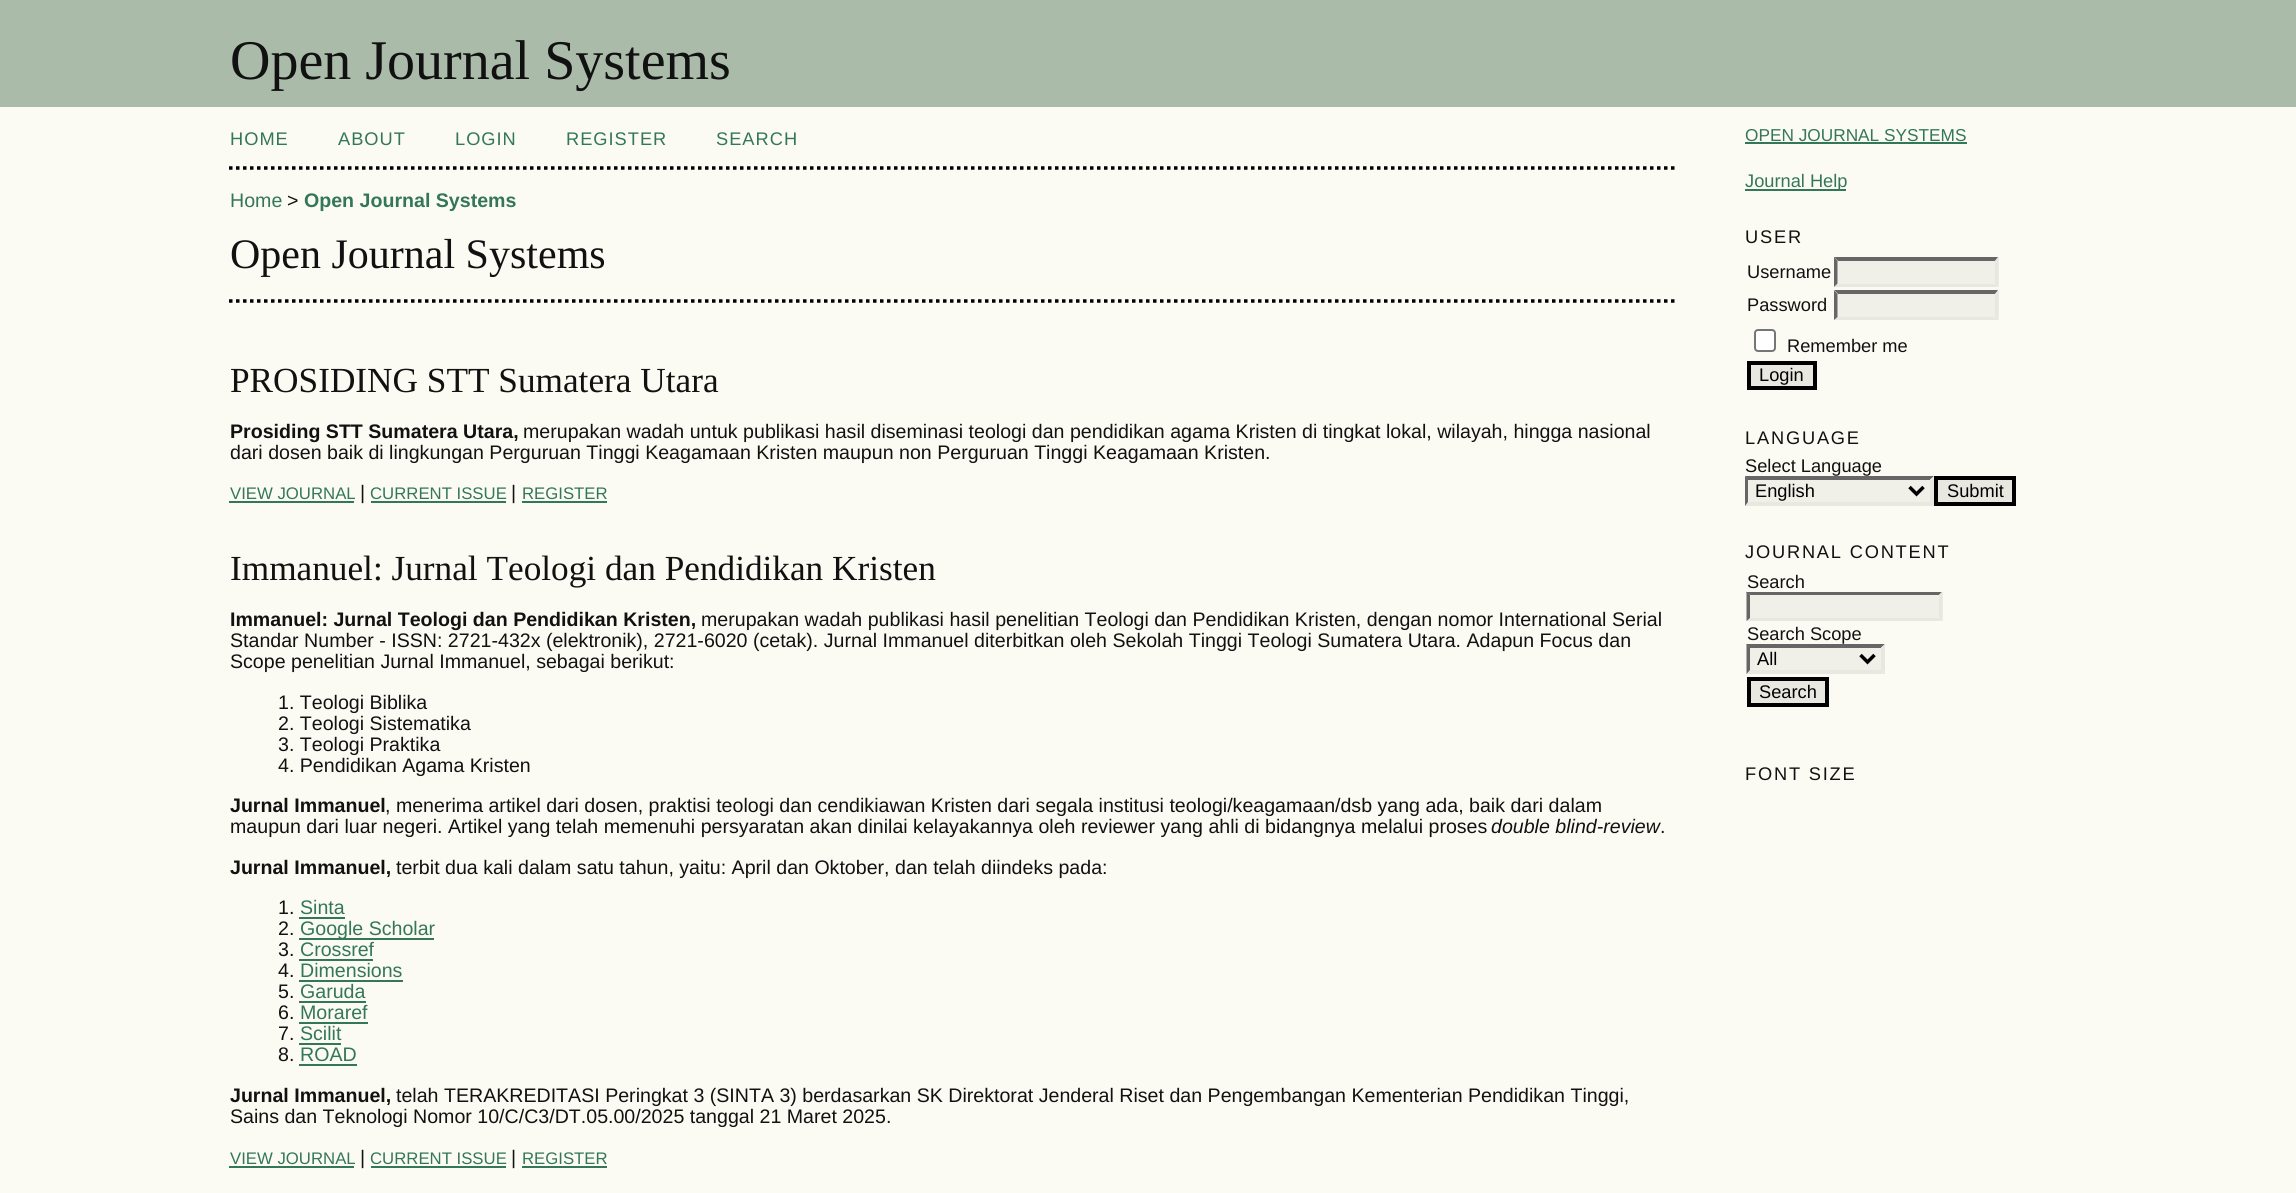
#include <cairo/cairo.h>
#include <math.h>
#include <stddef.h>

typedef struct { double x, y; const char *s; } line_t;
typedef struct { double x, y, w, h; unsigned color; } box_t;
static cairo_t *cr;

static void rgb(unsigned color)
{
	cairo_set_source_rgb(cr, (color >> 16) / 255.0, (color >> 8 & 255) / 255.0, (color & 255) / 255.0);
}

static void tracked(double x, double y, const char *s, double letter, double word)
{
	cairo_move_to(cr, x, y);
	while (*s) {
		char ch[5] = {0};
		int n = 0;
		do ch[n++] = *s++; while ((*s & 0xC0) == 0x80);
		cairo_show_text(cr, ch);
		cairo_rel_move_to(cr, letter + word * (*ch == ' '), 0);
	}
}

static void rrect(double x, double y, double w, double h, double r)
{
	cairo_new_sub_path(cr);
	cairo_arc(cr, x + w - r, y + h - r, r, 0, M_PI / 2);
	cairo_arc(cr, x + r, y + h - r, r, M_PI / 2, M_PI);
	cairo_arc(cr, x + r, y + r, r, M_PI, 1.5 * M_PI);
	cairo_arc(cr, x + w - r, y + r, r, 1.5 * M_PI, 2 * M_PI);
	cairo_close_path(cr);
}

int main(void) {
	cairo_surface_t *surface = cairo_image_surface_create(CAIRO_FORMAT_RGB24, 2296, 1193);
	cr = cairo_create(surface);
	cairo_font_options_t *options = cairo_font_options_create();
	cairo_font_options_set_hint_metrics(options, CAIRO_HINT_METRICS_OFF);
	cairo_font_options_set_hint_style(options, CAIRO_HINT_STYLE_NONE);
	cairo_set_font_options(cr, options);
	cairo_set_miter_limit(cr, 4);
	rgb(0xfbfbf3);
	cairo_paint(cr);
	rgb(0xaabbaa);
	cairo_rectangle(cr, 0, 0, 2296, 107);
	cairo_fill(cr);
	cairo_new_path(cr);
	cairo_move_to(cr, 229, 168);
	cairo_line_to(cr, 1676.5, 168);
	rgb(0x000000);
	cairo_set_line_width(cr, 3.5);
	cairo_set_dash(cr, (double[]){3.5, 3.5}, 2, 0);
	cairo_stroke(cr);
	cairo_new_path(cr);
	cairo_move_to(cr, 229, 301);
	cairo_line_to(cr, 1676.5, 301);
	cairo_stroke(cr);
	{
		static const box_t items[] = {
			{229, 501, 125, 2, 0x337755},
			{371, 501, 135, 2, 0x337755},
			{522, 501, 85, 2, 0x337755},
			{299, 917, 46, 2, 0x337755},
			{299, 938, 135, 2, 0x337755},
			{299, 959, 74, 2, 0x337755},
			{299, 980, 104, 2, 0x337755},
			{299, 1001, 67, 2, 0x337755},
			{299, 1022, 69, 2, 0x337755},
			{299, 1043, 42, 2, 0x337755},
			{299, 1064, 58, 2, 0x337755},
			{229, 1166, 125, 2, 0x337755},
			{371, 1166, 135, 2, 0x337755},
			{522, 1166, 85, 2, 0x337755},
			{1745, 142, 222, 2, 0x337755},
			{1745, 189, 101, 2, 0x337755},
			{1834, 257, 165, 30, 0xf0f0e8},
		};
		for (size_t i = 0; i < sizeof items / sizeof *items; i++) {
			rgb(items[i].color);
			cairo_rectangle(cr, items[i].x, items[i].y, items[i].w, items[i].h);
			cairo_fill(cr);
		}
	}
	rgb(0x666666);
	cairo_new_path(cr);
	cairo_move_to(cr, 1834, 257);
	cairo_line_to(cr, 1998, 257);
	cairo_line_to(cr, 1995, 261);
	cairo_line_to(cr, 1838, 261);
	cairo_close_path(cr);
	cairo_fill(cr);
	rgb(0xe8e8e1);
	cairo_new_path(cr);
	cairo_move_to(cr, 1998.5, 257);
	cairo_line_to(cr, 1998.5, 287);
	cairo_line_to(cr, 1995, 283.5);
	cairo_line_to(cr, 1995, 261);
	cairo_close_path(cr);
	cairo_fill(cr);
	cairo_new_path(cr);
	cairo_move_to(cr, 1998, 287);
	cairo_line_to(cr, 1834, 287);
	cairo_line_to(cr, 1838, 284);
	cairo_line_to(cr, 1995, 284);
	cairo_close_path(cr);
	cairo_fill(cr);
	rgb(0x666666);
	cairo_new_path(cr);
	cairo_move_to(cr, 1834, 287);
	cairo_line_to(cr, 1834, 257);
	cairo_line_to(cr, 1837.5, 261);
	cairo_line_to(cr, 1837.5, 283.5);
	cairo_close_path(cr);
	cairo_fill(cr);
	rgb(0xf0f0e8);
	cairo_rectangle(cr, 1834, 291, 165, 29);
	cairo_fill(cr);
	rgb(0x666666);
	cairo_new_path(cr);
	cairo_move_to(cr, 1834, 290);
	cairo_line_to(cr, 1998, 290);
	cairo_line_to(cr, 1995, 294);
	cairo_line_to(cr, 1838, 294);
	cairo_close_path(cr);
	cairo_fill(cr);
	rgb(0xe8e8e1);
	cairo_new_path(cr);
	cairo_move_to(cr, 1998.5, 290.5);
	cairo_line_to(cr, 1998.5, 320);
	cairo_line_to(cr, 1995, 317);
	cairo_line_to(cr, 1995, 294);
	cairo_close_path(cr);
	cairo_fill(cr);
	cairo_new_path(cr);
	cairo_move_to(cr, 1998, 320);
	cairo_line_to(cr, 1834, 320);
	cairo_line_to(cr, 1838, 317);
	cairo_line_to(cr, 1995, 317);
	cairo_close_path(cr);
	cairo_fill(cr);
	rgb(0x666666);
	cairo_new_path(cr);
	cairo_move_to(cr, 1834, 320);
	cairo_line_to(cr, 1834, 290.5);
	cairo_line_to(cr, 1837.5, 294);
	cairo_line_to(cr, 1837.5, 317);
	cairo_close_path(cr);
	cairo_fill(cr);
	rgb(0xffffff);
	rrect(1755, 330, 20, 21, 3);
	cairo_fill_preserve(cr);
	rgb(0x767676);
	cairo_set_line_width(cr, 2);
	cairo_set_dash(cr, NULL, 0, 0);
	cairo_stroke(cr);
	rgb(0xe8e8e1);
	cairo_rectangle(cr, 1749, 363, 66, 25);
	cairo_fill_preserve(cr);
	rgb(0x000000);
	cairo_set_line_width(cr, 4);
	cairo_stroke(cr);
	rgb(0xf0f0e8);
	cairo_rectangle(cr, 1745, 476, 189, 30);
	cairo_fill(cr);
	rgb(0x666666);
	cairo_new_path(cr);
	cairo_move_to(cr, 1745, 476);
	cairo_line_to(cr, 1934, 476);
	cairo_line_to(cr, 1930, 480);
	cairo_line_to(cr, 1748, 480);
	cairo_close_path(cr);
	cairo_fill(cr);
	rgb(0xe8e8e1);
	cairo_new_path(cr);
	cairo_move_to(cr, 1934, 476);
	cairo_line_to(cr, 1934, 506);
	cairo_line_to(cr, 1930, 502);
	cairo_line_to(cr, 1930, 479.5);
	cairo_close_path(cr);
	cairo_fill(cr);
	cairo_new_path(cr);
	cairo_move_to(cr, 1934, 506);
	cairo_line_to(cr, 1745, 506);
	cairo_line_to(cr, 1748, 502);
	cairo_line_to(cr, 1930, 502);
	cairo_close_path(cr);
	cairo_fill(cr);
	rgb(0x666666);
	cairo_new_path(cr);
	cairo_move_to(cr, 1745, 506);
	cairo_line_to(cr, 1745, 476);
	cairo_line_to(cr, 1748, 479.5);
	cairo_line_to(cr, 1748, 502);
	cairo_close_path(cr);
	cairo_fill(cr);
	cairo_new_path(cr);
	cairo_move_to(cr, 1909.5, 487);
	cairo_line_to(cr, 1916.5, 494);
	cairo_line_to(cr, 1923.5, 487);
	rgb(0x000000);
	cairo_set_line_width(cr, 3.5);
	cairo_stroke(cr);
	rgb(0xe8e8e1);
	cairo_rectangle(cr, 1936, 478, 78, 26);
	cairo_fill_preserve(cr);
	rgb(0x000000);
	cairo_set_line_width(cr, 4);
	cairo_stroke(cr);
	rgb(0xf0f0e8);
	cairo_rectangle(cr, 1747, 592, 196, 29);
	cairo_fill(cr);
	rgb(0x666666);
	cairo_new_path(cr);
	cairo_move_to(cr, 1746, 592);
	cairo_line_to(cr, 1942, 592);
	cairo_line_to(cr, 1939, 595);
	cairo_line_to(cr, 1750, 595);
	cairo_close_path(cr);
	cairo_fill(cr);
	rgb(0xe8e8e1);
	cairo_new_path(cr);
	cairo_move_to(cr, 1942.5, 591.5);
	cairo_line_to(cr, 1942.5, 621);
	cairo_line_to(cr, 1939, 618);
	cairo_line_to(cr, 1939, 595);
	cairo_close_path(cr);
	cairo_fill(cr);
	cairo_new_path(cr);
	cairo_move_to(cr, 1942, 621);
	cairo_line_to(cr, 1746, 621);
	cairo_line_to(cr, 1750, 618);
	cairo_line_to(cr, 1939, 618);
	cairo_close_path(cr);
	cairo_fill(cr);
	rgb(0x666666);
	cairo_new_path(cr);
	cairo_move_to(cr, 1746.5, 621);
	cairo_line_to(cr, 1746.5, 591.5);
	cairo_line_to(cr, 1750, 595);
	cairo_line_to(cr, 1750, 618);
	cairo_close_path(cr);
	cairo_fill(cr);
	rgb(0xf0f0e8);
	cairo_rectangle(cr, 1747, 644, 138, 30);
	cairo_fill(cr);
	rgb(0x666666);
	cairo_new_path(cr);
	cairo_move_to(cr, 1746, 644);
	cairo_line_to(cr, 1885, 644);
	cairo_line_to(cr, 1881, 648);
	cairo_line_to(cr, 1750, 648);
	cairo_close_path(cr);
	cairo_fill(cr);
	rgb(0xe8e8e1);
	cairo_new_path(cr);
	cairo_move_to(cr, 1885, 644);
	cairo_line_to(cr, 1885, 674);
	cairo_line_to(cr, 1881, 670);
	cairo_line_to(cr, 1881, 647.5);
	cairo_close_path(cr);
	cairo_fill(cr);
	cairo_new_path(cr);
	cairo_move_to(cr, 1885, 674);
	cairo_line_to(cr, 1746, 674);
	cairo_line_to(cr, 1750, 670);
	cairo_line_to(cr, 1881, 670);
	cairo_close_path(cr);
	cairo_fill(cr);
	rgb(0x666666);
	cairo_new_path(cr);
	cairo_move_to(cr, 1746.5, 674);
	cairo_line_to(cr, 1746.5, 644);
	cairo_line_to(cr, 1750, 647.5);
	cairo_line_to(cr, 1750, 670);
	cairo_close_path(cr);
	cairo_fill(cr);
	cairo_new_path(cr);
	cairo_move_to(cr, 1860.5, 655);
	cairo_line_to(cr, 1867.5, 662);
	cairo_line_to(cr, 1874.5, 655);
	rgb(0x000000);
	cairo_set_line_width(cr, 3.5);
	cairo_stroke(cr);
	rgb(0xe8e8e1);
	cairo_rectangle(cr, 1749, 679, 78, 26);
	cairo_fill_preserve(cr);
	rgb(0x000000);
	cairo_set_line_width(cr, 4);
	cairo_stroke(cr);
	cairo_select_font_face(cr, "Liberation Serif", CAIRO_FONT_SLANT_NORMAL, CAIRO_FONT_WEIGHT_NORMAL);
	cairo_set_font_size(cr, 56);
	rgb(0x111111);
	cairo_move_to(cr, 230, 79);
	cairo_show_text(cr, "Open Journal Systems");
	cairo_select_font_face(cr, "Liberation Sans", CAIRO_FONT_SLANT_NORMAL, CAIRO_FONT_WEIGHT_NORMAL);
	cairo_set_font_size(cr, 18.25);
	rgb(0x337755);
	{
		static const line_t items[] = {
			{230, 145, "HOME"},
			{338, 145, "ABOUT"},
			{455, 145, "LOGIN"},
			{566, 145, "REGISTER"},
			{716, 145, "SEARCH"},
		};
		for (size_t i = 0; i < sizeof items / sizeof *items; i++) {
			tracked(items[i].x, items[i].y, items[i].s, 1, 0);
		}
	}
	cairo_set_font_size(cr, 19.6);
	cairo_move_to(cr, 230, 207);
	cairo_show_text(cr, "Home");
	rgb(0x111111);
	cairo_move_to(cr, 287, 207);
	cairo_show_text(cr, ">");
	cairo_select_font_face(cr, "Liberation Sans", CAIRO_FONT_SLANT_NORMAL, CAIRO_FONT_WEIGHT_BOLD);
	rgb(0x337755);
	cairo_move_to(cr, 304, 207);
	cairo_show_text(cr, "Open Journal Systems");
	cairo_select_font_face(cr, "Liberation Serif", CAIRO_FONT_SLANT_NORMAL, CAIRO_FONT_WEIGHT_NORMAL);
	cairo_set_font_size(cr, 42);
	rgb(0x111111);
	cairo_move_to(cr, 230, 268);
	cairo_show_text(cr, "Open Journal Systems");
	cairo_set_font_size(cr, 35.25);
	cairo_move_to(cr, 230, 392);
	cairo_show_text(cr, "PROSIDING STT Sumatera Utara");
	cairo_select_font_face(cr, "Liberation Sans", CAIRO_FONT_SLANT_NORMAL, CAIRO_FONT_WEIGHT_BOLD);
	cairo_set_font_size(cr, 19.6);
	cairo_move_to(cr, 230, 438);
	cairo_show_text(cr, "Prosiding STT Sumatera Utara,");
	cairo_select_font_face(cr, "Liberation Sans", CAIRO_FONT_SLANT_NORMAL, CAIRO_FONT_WEIGHT_NORMAL);
	cairo_move_to(cr, 523, 438);
	cairo_show_text(cr, "merupakan wadah untuk publikasi hasil diseminasi teologi dan pendidikan agama Kristen di tingkat lokal, wilayah, hingga nasional");
	cairo_move_to(cr, 230, 459);
	cairo_show_text(cr, "dari dosen baik di lingkungan Perguruan Tinggi Keagamaan Kristen maupun non Perguruan Tinggi Keagamaan Kristen.");
	cairo_set_font_size(cr, 16.75);
	rgb(0x337755);
	cairo_move_to(cr, 230, 499);
	cairo_show_text(cr, "VIEW JOURNAL");
	cairo_set_font_size(cr, 19.6);
	rgb(0x111111);
	cairo_move_to(cr, 360, 499);
	cairo_show_text(cr, "|");
	cairo_set_font_size(cr, 16.75);
	rgb(0x337755);
	cairo_move_to(cr, 370, 499);
	cairo_show_text(cr, "CURRENT ISSUE");
	cairo_set_font_size(cr, 19.6);
	rgb(0x111111);
	cairo_move_to(cr, 511, 499);
	cairo_show_text(cr, "|");
	cairo_set_font_size(cr, 16.75);
	rgb(0x337755);
	cairo_move_to(cr, 522, 499);
	cairo_show_text(cr, "REGISTER");
	cairo_select_font_face(cr, "Liberation Serif", CAIRO_FONT_SLANT_NORMAL, CAIRO_FONT_WEIGHT_NORMAL);
	cairo_set_font_size(cr, 35.25);
	rgb(0x111111);
	cairo_move_to(cr, 230, 580);
	cairo_show_text(cr, "Immanuel: Jurnal Teologi dan Pendidikan Kristen");
	cairo_select_font_face(cr, "Liberation Sans", CAIRO_FONT_SLANT_NORMAL, CAIRO_FONT_WEIGHT_BOLD);
	cairo_set_font_size(cr, 19.6);
	cairo_move_to(cr, 230, 626);
	cairo_show_text(cr, "Immanuel: Jurnal Teologi dan Pendidikan Kristen,");
	cairo_select_font_face(cr, "Liberation Sans", CAIRO_FONT_SLANT_NORMAL, CAIRO_FONT_WEIGHT_NORMAL);
	{
		static const line_t items[] = {
			{701, 626, "merupakan wadah publikasi hasil penelitian Teologi dan Pendidikan Kristen, dengan nomor International Serial"},
			{230, 647, "Standar Number - ISSN: 2721-432x (elektronik), 2721-6020 (cetak). Jurnal Immanuel diterbitkan oleh Sekolah Tinggi Teologi Sumatera Utara. Adapun Focus dan"},
			{230, 668, "Scope penelitian Jurnal Immanuel, sebagai berikut:"},
			{278, 709, "1. Teologi Biblika"},
			{278, 730, "2. Teologi Sistematika"},
			{278, 751, "3. Teologi Praktika"},
			{278, 772, "4. Pendidikan Agama Kristen"},
		};
		for (size_t i = 0; i < sizeof items / sizeof *items; i++) {
			cairo_move_to(cr, items[i].x, items[i].y);
			cairo_show_text(cr, items[i].s);
		}
	}
	cairo_select_font_face(cr, "Liberation Sans", CAIRO_FONT_SLANT_NORMAL, CAIRO_FONT_WEIGHT_BOLD);
	cairo_move_to(cr, 230, 812);
	cairo_show_text(cr, "Jurnal Immanuel");
	cairo_select_font_face(cr, "Liberation Sans", CAIRO_FONT_SLANT_NORMAL, CAIRO_FONT_WEIGHT_NORMAL);
	cairo_move_to(cr, 385, 812);
	cairo_show_text(cr, ", menerima artikel dari dosen, praktisi teologi dan cendikiawan Kristen dari segala institusi teologi/keagamaan/dsb yang ada, baik dari dalam");
	cairo_move_to(cr, 230, 833);
	cairo_show_text(cr, "maupun dari luar negeri. Artikel yang telah memenuhi persyaratan akan dinilai kelayakannya oleh reviewer yang ahli di bidangnya melalui proses");
	cairo_select_font_face(cr, "Liberation Sans", CAIRO_FONT_SLANT_ITALIC, CAIRO_FONT_WEIGHT_NORMAL);
	cairo_move_to(cr, 1491, 833);
	cairo_show_text(cr, "double blind-review");
	cairo_select_font_face(cr, "Liberation Sans", CAIRO_FONT_SLANT_NORMAL, CAIRO_FONT_WEIGHT_NORMAL);
	cairo_move_to(cr, 1660, 833);
	cairo_show_text(cr, ".");
	cairo_select_font_face(cr, "Liberation Sans", CAIRO_FONT_SLANT_NORMAL, CAIRO_FONT_WEIGHT_BOLD);
	cairo_move_to(cr, 230, 874);
	cairo_show_text(cr, "Jurnal Immanuel,");
	cairo_select_font_face(cr, "Liberation Sans", CAIRO_FONT_SLANT_NORMAL, CAIRO_FONT_WEIGHT_NORMAL);
	cairo_move_to(cr, 396, 874);
	cairo_show_text(cr, "terbit dua kali dalam satu tahun, yaitu: April dan Oktober, dan telah diindeks pada:");
	cairo_move_to(cr, 278, 914);
	cairo_show_text(cr, "1.");
	rgb(0x337755);
	cairo_move_to(cr, 300, 914);
	cairo_show_text(cr, "Sinta");
	rgb(0x111111);
	cairo_move_to(cr, 278, 935);
	cairo_show_text(cr, "2.");
	rgb(0x337755);
	cairo_move_to(cr, 300, 935);
	cairo_show_text(cr, "Google Scholar");
	rgb(0x111111);
	cairo_move_to(cr, 278, 956);
	cairo_show_text(cr, "3.");
	rgb(0x337755);
	cairo_move_to(cr, 300, 956);
	cairo_show_text(cr, "Crossref");
	rgb(0x111111);
	cairo_move_to(cr, 278, 977);
	cairo_show_text(cr, "4.");
	rgb(0x337755);
	cairo_move_to(cr, 300, 977);
	cairo_show_text(cr, "Dimensions");
	rgb(0x111111);
	cairo_move_to(cr, 278, 998);
	cairo_show_text(cr, "5.");
	rgb(0x337755);
	cairo_move_to(cr, 300, 998);
	cairo_show_text(cr, "Garuda");
	rgb(0x111111);
	cairo_move_to(cr, 278, 1019);
	cairo_show_text(cr, "6.");
	rgb(0x337755);
	cairo_move_to(cr, 300, 1019);
	cairo_show_text(cr, "Moraref");
	rgb(0x111111);
	cairo_move_to(cr, 278, 1040);
	cairo_show_text(cr, "7.");
	rgb(0x337755);
	cairo_move_to(cr, 300, 1040);
	cairo_show_text(cr, "Scilit");
	rgb(0x111111);
	cairo_move_to(cr, 278, 1061);
	cairo_show_text(cr, "8.");
	rgb(0x337755);
	cairo_move_to(cr, 300, 1061);
	cairo_show_text(cr, "ROAD");
	cairo_select_font_face(cr, "Liberation Sans", CAIRO_FONT_SLANT_NORMAL, CAIRO_FONT_WEIGHT_BOLD);
	rgb(0x111111);
	cairo_move_to(cr, 230, 1102);
	cairo_show_text(cr, "Jurnal Immanuel,");
	cairo_select_font_face(cr, "Liberation Sans", CAIRO_FONT_SLANT_NORMAL, CAIRO_FONT_WEIGHT_NORMAL);
	cairo_move_to(cr, 396, 1102);
	cairo_show_text(cr, "telah TERAKREDITASI Peringkat 3 (SINTA 3) berdasarkan SK Direktorat Jenderal Riset dan Pengembangan Kementerian Pendidikan Tinggi,");
	cairo_move_to(cr, 230, 1123);
	cairo_show_text(cr, "Sains dan Teknologi Nomor 10/C/C3/DT.05.00/2025 tanggal 21 Maret 2025.");
	cairo_set_font_size(cr, 16.75);
	rgb(0x337755);
	cairo_move_to(cr, 230, 1164);
	cairo_show_text(cr, "VIEW JOURNAL");
	cairo_set_font_size(cr, 19.6);
	rgb(0x111111);
	cairo_move_to(cr, 360, 1164);
	cairo_show_text(cr, "|");
	cairo_set_font_size(cr, 16.75);
	rgb(0x337755);
	cairo_move_to(cr, 370, 1164);
	cairo_show_text(cr, "CURRENT ISSUE");
	cairo_set_font_size(cr, 19.6);
	rgb(0x111111);
	cairo_move_to(cr, 511, 1164);
	cairo_show_text(cr, "|");
	cairo_set_font_size(cr, 16.75);
	rgb(0x337755);
	cairo_move_to(cr, 522, 1164);
	cairo_show_text(cr, "REGISTER");
	cairo_set_font_size(cr, 17.25);
	cairo_move_to(cr, 1745, 141);
	cairo_show_text(cr, "OPEN JOURNAL SYSTEMS");
	cairo_set_font_size(cr, 18.25);
	cairo_move_to(cr, 1745, 187);
	cairo_show_text(cr, "Journal Help");
	rgb(0x111111);
	tracked(1745, 243, "USER", 1.8, 0);
	{
		static const line_t items[] = {
			{1747, 278, "Username"},
			{1747, 311, "Password"},
			{1787, 352, "Remember me"},
		};
		for (size_t i = 0; i < sizeof items / sizeof *items; i++) {
			cairo_move_to(cr, items[i].x, items[i].y);
			cairo_show_text(cr, items[i].s);
		}
	}
	rgb(0x000000);
	cairo_move_to(cr, 1759, 381);
	cairo_show_text(cr, "Login");
	rgb(0x111111);
	tracked(1745, 444, "LANGUAGE", 1.8, 0);
	cairo_move_to(cr, 1745, 472);
	cairo_show_text(cr, "Select Language");
	rgb(0x000000);
	cairo_move_to(cr, 1755, 497);
	cairo_show_text(cr, "English");
	cairo_move_to(cr, 1947, 497);
	cairo_show_text(cr, "Submit");
	rgb(0x111111);
	tracked(1745, 558, "JOURNAL CONTENT", 1.8, 0);
	cairo_move_to(cr, 1747, 588);
	cairo_show_text(cr, "Search");
	cairo_move_to(cr, 1747, 640);
	cairo_show_text(cr, "Search Scope");
	rgb(0x000000);
	cairo_move_to(cr, 1757, 665);
	cairo_show_text(cr, "All");
	cairo_move_to(cr, 1759, 698);
	cairo_show_text(cr, "Search");
	rgb(0x111111);
	tracked(1745, 780, "FONT SIZE", 1.8, 0);
	cairo_surface_write_to_png(surface, "page.png");
	cairo_font_options_destroy(options);
	cairo_destroy(cr);
	cairo_surface_destroy(surface);
	return 0;
}
